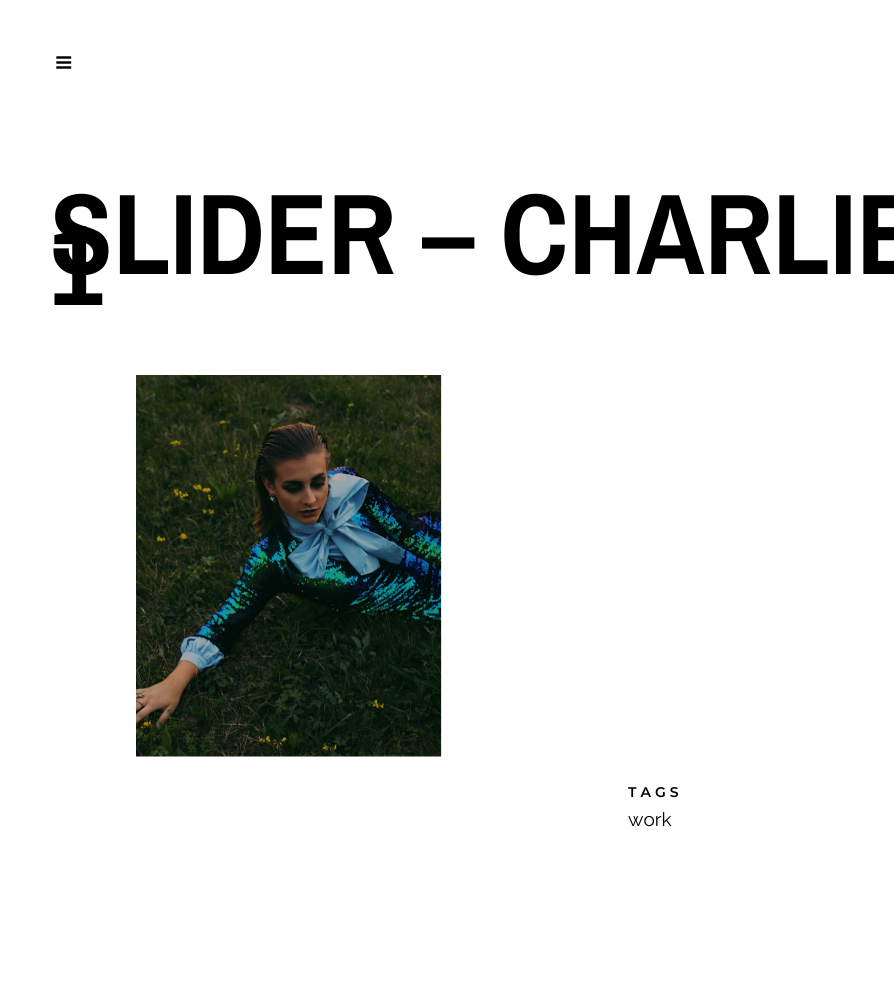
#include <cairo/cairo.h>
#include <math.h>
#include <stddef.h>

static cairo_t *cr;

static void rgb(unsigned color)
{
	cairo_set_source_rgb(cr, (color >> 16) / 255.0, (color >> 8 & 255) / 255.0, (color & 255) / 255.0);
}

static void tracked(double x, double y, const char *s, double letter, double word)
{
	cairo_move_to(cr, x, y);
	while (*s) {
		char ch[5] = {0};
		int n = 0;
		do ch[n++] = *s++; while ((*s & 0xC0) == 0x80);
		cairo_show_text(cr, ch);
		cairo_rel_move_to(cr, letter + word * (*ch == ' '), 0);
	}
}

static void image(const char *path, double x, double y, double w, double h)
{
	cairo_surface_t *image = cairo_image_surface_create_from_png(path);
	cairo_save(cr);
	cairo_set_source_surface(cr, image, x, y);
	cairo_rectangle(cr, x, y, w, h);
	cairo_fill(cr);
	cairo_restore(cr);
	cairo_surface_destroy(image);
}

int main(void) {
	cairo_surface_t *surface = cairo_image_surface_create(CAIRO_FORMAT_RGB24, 894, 1000);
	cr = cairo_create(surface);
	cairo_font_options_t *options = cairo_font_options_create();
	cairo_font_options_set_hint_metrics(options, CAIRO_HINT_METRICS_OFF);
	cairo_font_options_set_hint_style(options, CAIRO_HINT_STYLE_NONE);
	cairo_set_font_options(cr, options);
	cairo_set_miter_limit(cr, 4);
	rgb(0xffffff);
	cairo_paint(cr);
	image("img/1.png", 56, 56, 16, 13);
	image("img/2.png", 136, 375, 306, 382);
	cairo_select_font_face(cr, "Pragati Narrow", CAIRO_FONT_SLANT_NORMAL, CAIRO_FONT_WEIGHT_BOLD);
	cairo_set_font_size(cr, 125);
	rgb(0x000000);
	cairo_move_to(cr, 50, 274);
	cairo_show_text(cr, "SLIDER – CHARLIE");
	cairo_move_to(cr, 50, 305);
	cairo_show_text(cr, "1");
	cairo_select_font_face(cr, "Montserrat SemiBold", CAIRO_FONT_SLANT_NORMAL, CAIRO_FONT_WEIGHT_NORMAL);
	cairo_set_font_size(cr, 14);
	tracked(628, 797, "TAGS", 4, 0);
	cairo_select_font_face(cr, "Raleway", CAIRO_FONT_SLANT_NORMAL, CAIRO_FONT_WEIGHT_NORMAL);
	cairo_set_font_size(cr, 19);
	cairo_move_to(cr, 628, 826);
	cairo_show_text(cr, "work");
	cairo_surface_write_to_png(surface, "page.png");
	cairo_font_options_destroy(options);
	cairo_destroy(cr);
	cairo_surface_destroy(surface);
	return 0;
}
